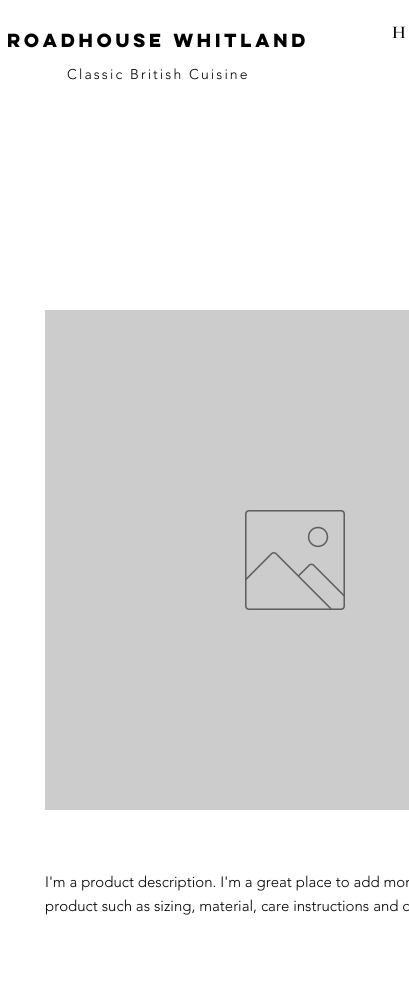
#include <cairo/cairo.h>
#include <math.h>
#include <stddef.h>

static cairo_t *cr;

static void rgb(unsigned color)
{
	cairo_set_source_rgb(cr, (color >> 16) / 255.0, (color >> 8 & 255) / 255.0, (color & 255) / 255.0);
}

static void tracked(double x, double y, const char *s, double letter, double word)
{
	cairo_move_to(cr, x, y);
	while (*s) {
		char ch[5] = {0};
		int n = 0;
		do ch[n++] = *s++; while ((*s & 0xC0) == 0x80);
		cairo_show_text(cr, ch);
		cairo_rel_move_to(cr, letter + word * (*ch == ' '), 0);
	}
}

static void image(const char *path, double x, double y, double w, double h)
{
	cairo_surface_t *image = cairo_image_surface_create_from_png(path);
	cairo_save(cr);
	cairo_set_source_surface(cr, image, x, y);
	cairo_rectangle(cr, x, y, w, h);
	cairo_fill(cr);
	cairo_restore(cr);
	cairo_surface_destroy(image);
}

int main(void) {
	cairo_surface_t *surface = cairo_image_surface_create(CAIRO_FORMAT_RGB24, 409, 993);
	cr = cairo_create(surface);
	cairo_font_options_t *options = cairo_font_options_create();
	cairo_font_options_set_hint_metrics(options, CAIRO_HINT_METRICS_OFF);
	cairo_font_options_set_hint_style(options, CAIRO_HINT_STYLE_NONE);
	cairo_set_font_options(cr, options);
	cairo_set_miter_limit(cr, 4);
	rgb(0xffffff);
	cairo_paint(cr);
	rgb(0xcccccc);
	cairo_rectangle(cr, 45, 310, 364, 500);
	cairo_fill(cr);
	image("img/1.png", 245, 510, 100, 100);
	cairo_select_font_face(cr, "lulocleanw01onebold", CAIRO_FONT_SLANT_NORMAL, CAIRO_FONT_WEIGHT_BOLD);
	cairo_set_font_size(cr, 17);
	rgb(0x000000);
	cairo_move_to(cr, 7, 47);
	cairo_show_text(cr, "Roadhouse Whitland");
	cairo_select_font_face(cr, "Cormorant Garamond SemiBold", CAIRO_FONT_SLANT_NORMAL, CAIRO_FONT_WEIGHT_NORMAL);
	cairo_set_font_size(cr, 18);
	tracked(392, 38, "H", 1, 0);
	cairo_select_font_face(cr, "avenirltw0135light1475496 Light", CAIRO_FONT_SLANT_NORMAL, CAIRO_FONT_WEIGHT_NORMAL);
	cairo_set_font_size(cr, 14);
	tracked(67, 79, "Classic British Cuisine", 2.1, 0);
	cairo_set_font_size(cr, 15);
	cairo_move_to(cr, 45, 887);
	cairo_show_text(cr, "I'm a product description. I'm a great place to add mor");
	cairo_move_to(cr, 45, 911);
	cairo_show_text(cr, "product such as sizing, material, care instructions and c");
	cairo_surface_write_to_png(surface, "page.png");
	cairo_font_options_destroy(options);
	cairo_destroy(cr);
	cairo_surface_destroy(surface);
	return 0;
}
